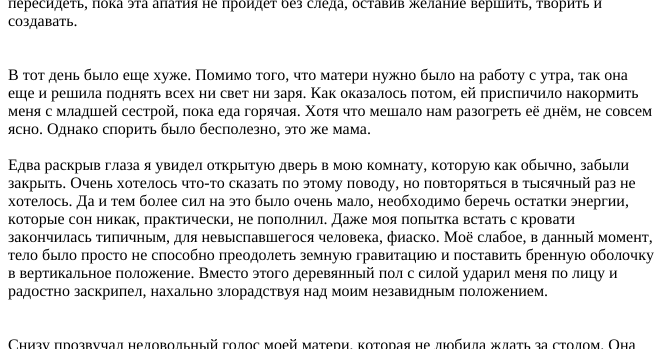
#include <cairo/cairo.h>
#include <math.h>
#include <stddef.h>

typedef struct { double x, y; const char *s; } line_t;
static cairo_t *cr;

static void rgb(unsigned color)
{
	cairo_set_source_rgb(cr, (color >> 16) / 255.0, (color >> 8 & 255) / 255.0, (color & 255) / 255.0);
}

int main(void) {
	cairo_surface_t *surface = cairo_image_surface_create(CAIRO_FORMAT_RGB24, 663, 349);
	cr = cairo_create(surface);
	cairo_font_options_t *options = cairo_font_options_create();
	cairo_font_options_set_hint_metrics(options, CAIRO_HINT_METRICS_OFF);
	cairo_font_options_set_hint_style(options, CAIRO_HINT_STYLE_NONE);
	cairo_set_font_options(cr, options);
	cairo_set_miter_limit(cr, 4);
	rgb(0xffffff);
	cairo_paint(cr);
	cairo_select_font_face(cr, "Liberation Serif", CAIRO_FONT_SLANT_NORMAL, CAIRO_FONT_WEIGHT_NORMAL);
	cairo_set_font_size(cr, 16);
	rgb(0x000000);
	{
		static const line_t items[] = {
			{8, 8, "пересидеть, пока эта апатия не пройдет без следа, оставив желание вершить, творить и"},
			{8, 26, "создавать."},
			{8, 80, "В тот день было еще хуже. Помимо того, что матери нужно было на работу с утра, так она"},
			{8, 98, "еще и решила поднять всех ни свет ни заря. Как оказалось потом, ей приспичило накормить"},
			{8, 116, "меня с младшей сестрой, пока еда горячая. Хотя что мешало нам разогреть её днём, не совсем"},
			{8, 134, "ясно. Однако спорить было бесполезно, это же мама."},
			{8, 170, "Едва раскрыв глаза я увидел открытую дверь в мою комнату, которую как обычно, забыли"},
			{8, 188, "закрыть. Очень хотелось что-то сказать по этому поводу, но повторяться в тысячный раз не"},
			{8, 206, "хотелось. Да и тем более сил на это было очень мало, необходимо беречь остатки энергии,"},
			{8, 224, "которые сон никак, практически, не пополнил. Даже моя попытка встать с кровати"},
			{8, 242, "закончилась типичным, для невыспавшегося человека, фиаско. Моё слабое, в данный момент,"},
			{8, 260, "тело было просто не способно преодолеть земную гравитацию и поставить бренную оболочку"},
			{8, 278, "в вертикальное положение. Вместо этого деревянный пол с силой ударил меня по лицу и"},
			{8, 296, "радостно заскрипел, нахально злорадствуя над моим незавидным положением."},
			{8, 350, "Снизу прозвучал недовольный голос моей матери, которая не любила ждать за столом. Она"},
		};
		for (size_t i = 0; i < sizeof items / sizeof *items; i++) {
			cairo_move_to(cr, items[i].x, items[i].y);
			cairo_show_text(cr, items[i].s);
		}
	}
	cairo_surface_write_to_png(surface, "page.png");
	cairo_font_options_destroy(options);
	cairo_destroy(cr);
	cairo_surface_destroy(surface);
	return 0;
}
